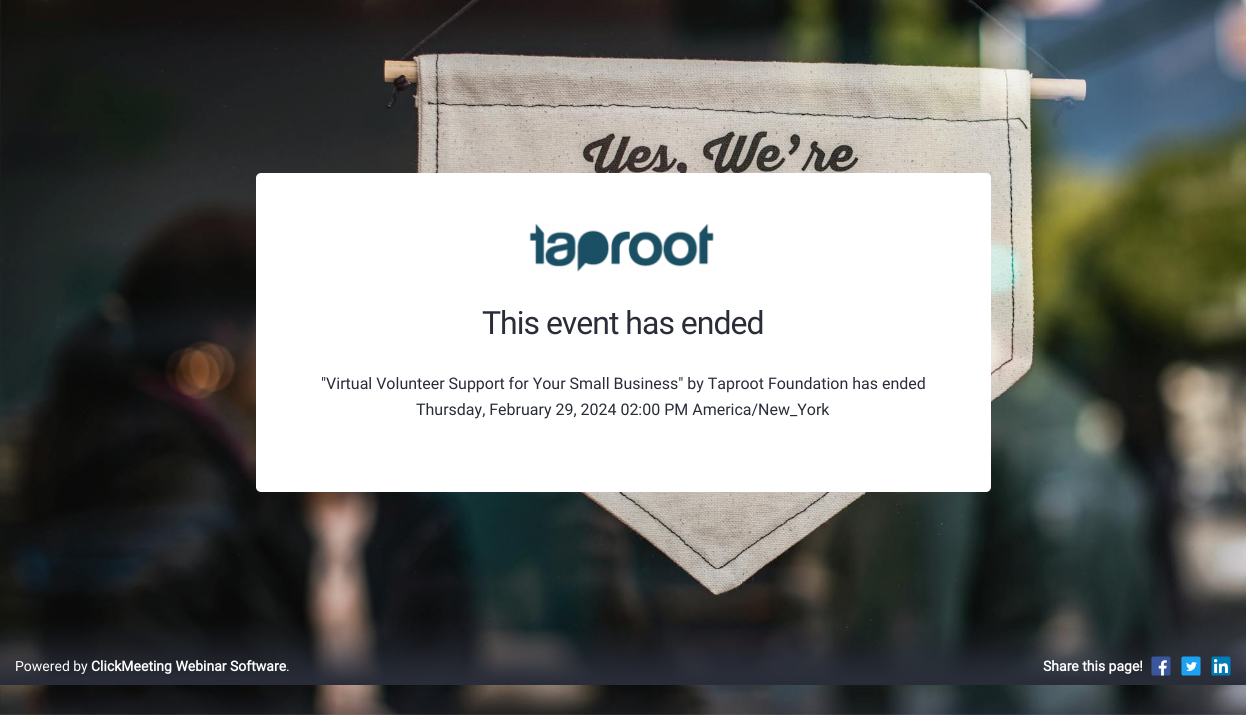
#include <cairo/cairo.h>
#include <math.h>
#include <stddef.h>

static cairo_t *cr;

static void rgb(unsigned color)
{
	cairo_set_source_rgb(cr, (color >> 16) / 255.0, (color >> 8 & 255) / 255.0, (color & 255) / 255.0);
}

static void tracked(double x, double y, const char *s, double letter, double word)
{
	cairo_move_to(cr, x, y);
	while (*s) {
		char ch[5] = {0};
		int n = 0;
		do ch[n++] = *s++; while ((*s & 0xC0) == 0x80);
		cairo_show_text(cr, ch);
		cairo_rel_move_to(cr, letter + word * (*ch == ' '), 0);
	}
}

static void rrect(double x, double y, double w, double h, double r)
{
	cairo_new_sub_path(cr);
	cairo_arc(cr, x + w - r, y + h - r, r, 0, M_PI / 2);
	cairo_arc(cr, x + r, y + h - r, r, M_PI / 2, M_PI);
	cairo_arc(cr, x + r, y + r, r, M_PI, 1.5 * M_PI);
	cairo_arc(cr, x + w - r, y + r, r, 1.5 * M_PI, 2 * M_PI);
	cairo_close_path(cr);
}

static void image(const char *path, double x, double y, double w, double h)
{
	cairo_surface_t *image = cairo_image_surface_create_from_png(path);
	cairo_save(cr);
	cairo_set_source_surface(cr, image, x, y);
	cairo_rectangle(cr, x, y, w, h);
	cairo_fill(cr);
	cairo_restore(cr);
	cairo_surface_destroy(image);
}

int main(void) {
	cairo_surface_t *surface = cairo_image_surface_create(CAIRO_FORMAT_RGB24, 1246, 715);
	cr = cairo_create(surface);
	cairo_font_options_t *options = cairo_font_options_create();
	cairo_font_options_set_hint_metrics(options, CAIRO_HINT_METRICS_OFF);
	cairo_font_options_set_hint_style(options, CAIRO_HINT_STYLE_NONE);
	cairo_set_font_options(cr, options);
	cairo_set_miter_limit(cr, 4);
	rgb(0xffffff);
	cairo_paint(cr);
	image("img/1.png", 0, 0, 1246, 715);
	rgb(0xffffff);
	rrect(256, 173, 735, 319, 5);
	cairo_fill(cr);
	image("img/2.png", 529, 223, 185, 49);
	image("img/3.png", 0, 620, 1246, 95);
	image("img/4.png", 1151, 656, 20, 20);
	image("img/5.png", 1181, 656, 20, 20);
	image("img/6.png", 1211, 656, 20, 20);
	cairo_select_font_face(cr, "Roboto", CAIRO_FONT_SLANT_NORMAL, CAIRO_FONT_WEIGHT_NORMAL);
	cairo_set_font_size(cr, 32);
	rgb(0x292d38);
	tracked(482, 334, "This event has ended", -1, 0);
	cairo_set_font_size(cr, 16);
	cairo_move_to(cr, 321, 389);
	cairo_show_text(cr, "\"Virtual Volunteer Support for Your Small Business\" by Taproot Foundation has ended");
	cairo_move_to(cr, 416, 415);
	cairo_show_text(cr, "Thursday, February 29, 2024 02:00 PM America/New_York");
	cairo_set_font_size(cr, 14);
	rgb(0xffffff);
	cairo_move_to(cr, 15, 671);
	cairo_show_text(cr, "Powered by");
	cairo_select_font_face(cr, "Roboto", CAIRO_FONT_SLANT_NORMAL, CAIRO_FONT_WEIGHT_BOLD);
	cairo_move_to(cr, 91, 671);
	cairo_show_text(cr, "ClickMeeting Webinar Software");
	cairo_select_font_face(cr, "Roboto", CAIRO_FONT_SLANT_NORMAL, CAIRO_FONT_WEIGHT_NORMAL);
	cairo_move_to(cr, 286, 671);
	cairo_show_text(cr, ".");
	cairo_select_font_face(cr, "Roboto", CAIRO_FONT_SLANT_NORMAL, CAIRO_FONT_WEIGHT_BOLD);
	cairo_move_to(cr, 1043, 671);
	cairo_show_text(cr, "Share this page!");
	cairo_surface_write_to_png(surface, "page.png");
	cairo_font_options_destroy(options);
	cairo_destroy(cr);
	cairo_surface_destroy(surface);
	return 0;
}
